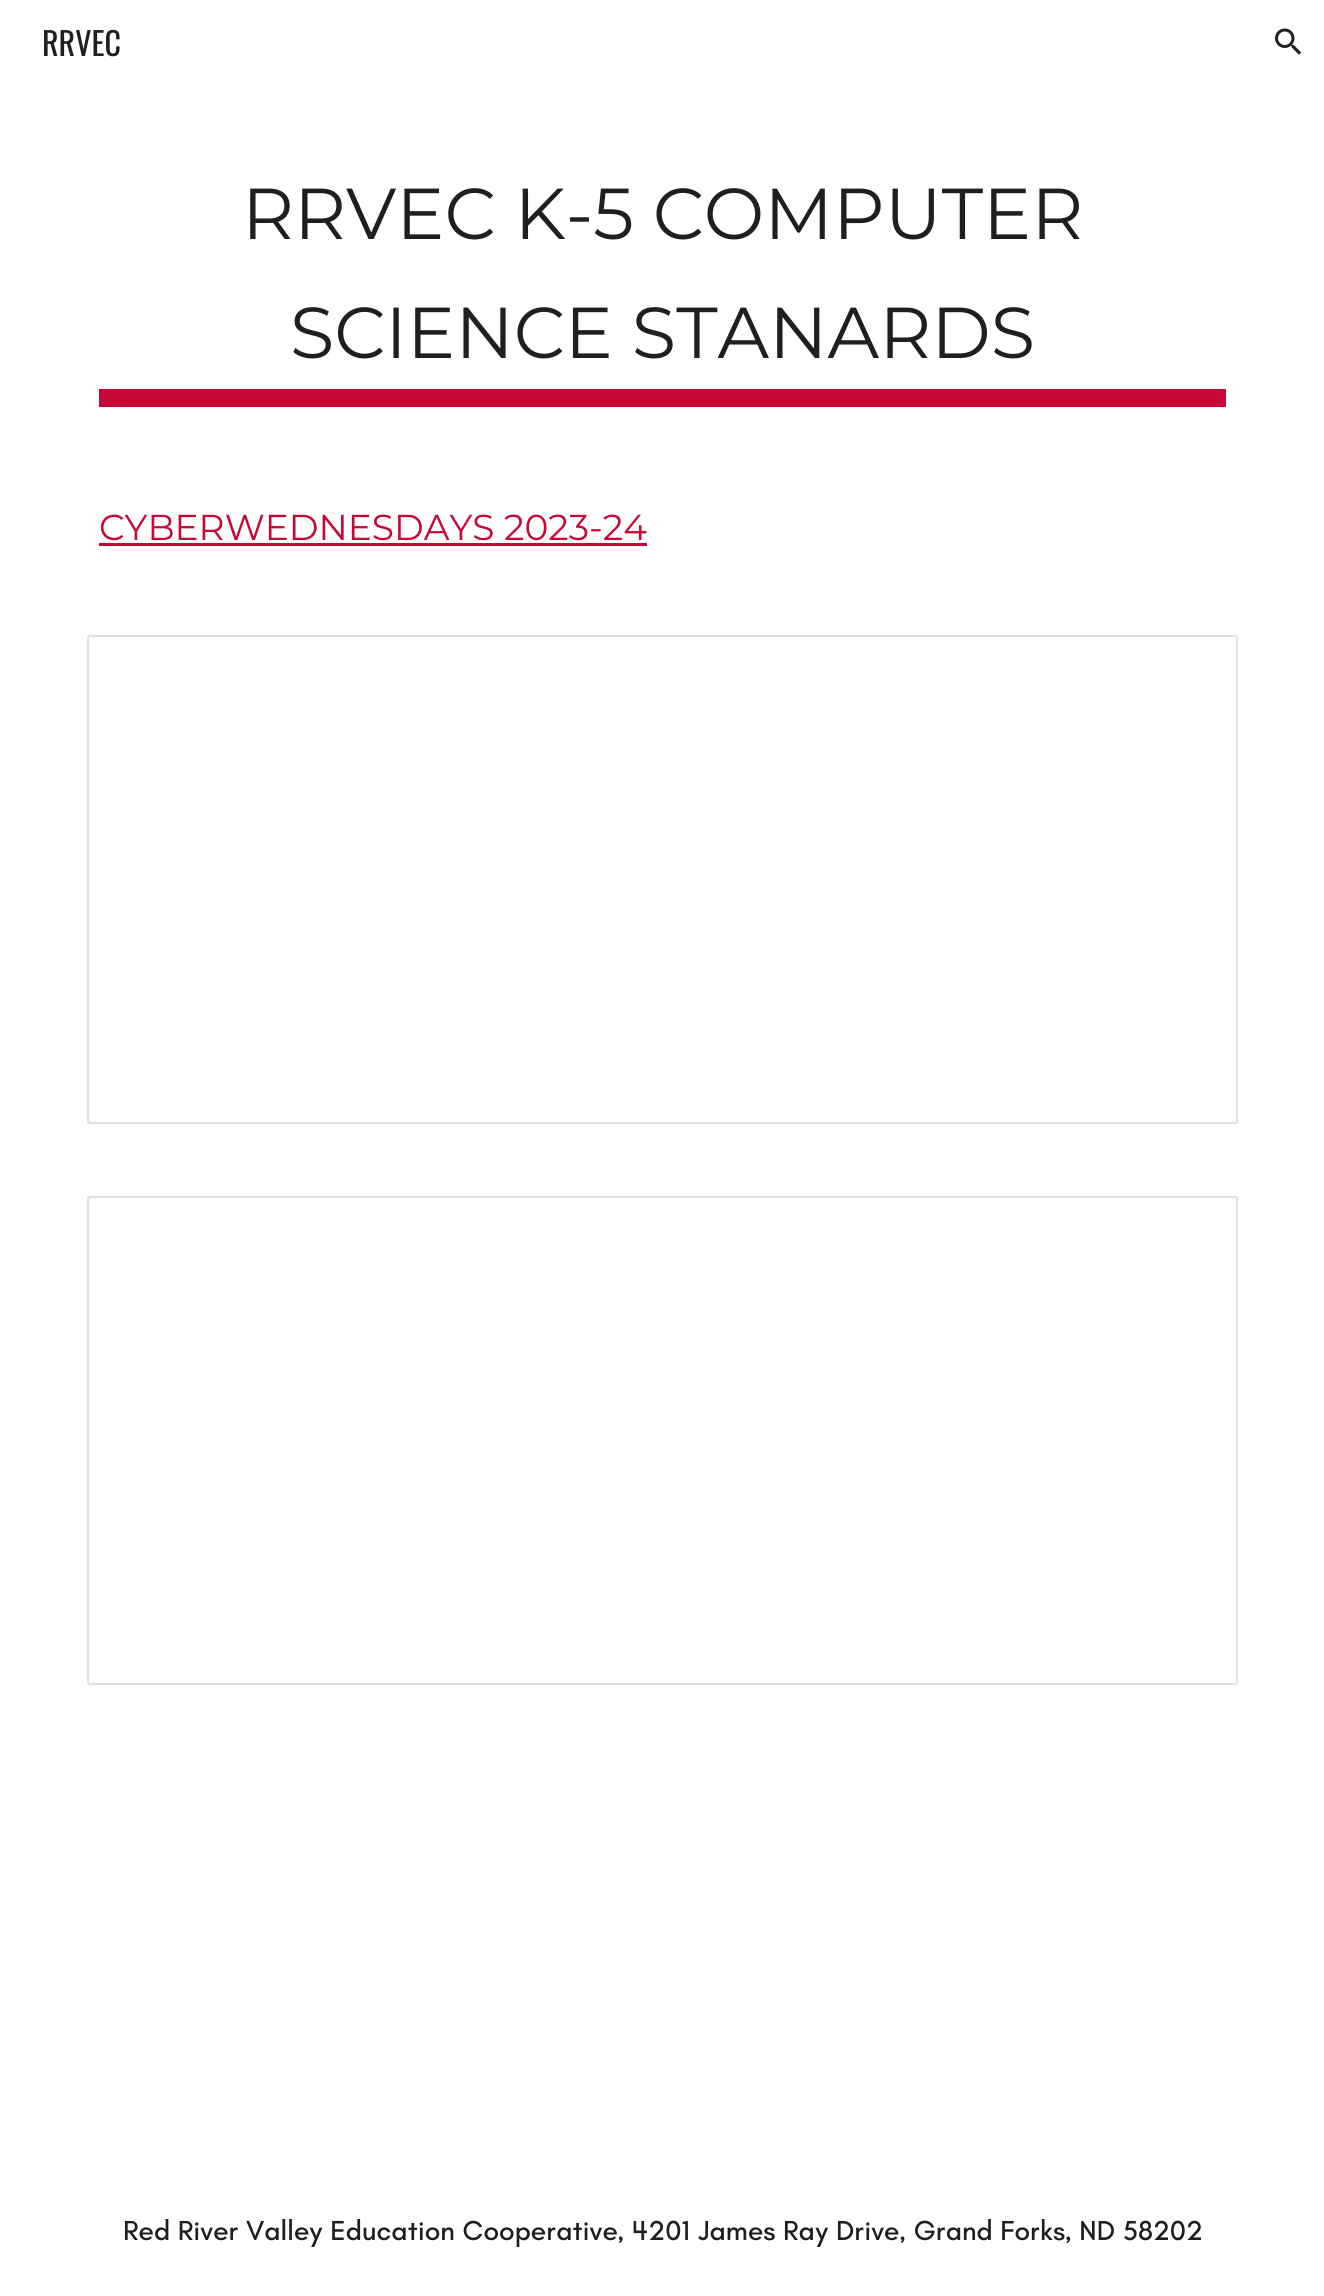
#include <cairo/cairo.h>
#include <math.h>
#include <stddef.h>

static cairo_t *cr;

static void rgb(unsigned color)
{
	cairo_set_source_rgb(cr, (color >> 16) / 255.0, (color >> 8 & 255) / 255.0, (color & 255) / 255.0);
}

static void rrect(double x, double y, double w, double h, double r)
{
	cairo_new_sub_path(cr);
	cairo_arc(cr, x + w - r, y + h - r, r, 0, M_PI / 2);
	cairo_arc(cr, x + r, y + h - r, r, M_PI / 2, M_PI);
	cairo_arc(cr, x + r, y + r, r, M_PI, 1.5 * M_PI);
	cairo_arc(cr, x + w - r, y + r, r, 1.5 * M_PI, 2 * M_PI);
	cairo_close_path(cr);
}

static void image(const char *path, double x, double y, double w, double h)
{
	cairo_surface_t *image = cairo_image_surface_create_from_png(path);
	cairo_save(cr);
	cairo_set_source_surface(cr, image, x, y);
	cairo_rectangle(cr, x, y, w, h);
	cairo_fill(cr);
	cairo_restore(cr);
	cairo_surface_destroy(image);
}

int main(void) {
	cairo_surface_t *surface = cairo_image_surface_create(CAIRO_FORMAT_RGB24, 1324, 2296);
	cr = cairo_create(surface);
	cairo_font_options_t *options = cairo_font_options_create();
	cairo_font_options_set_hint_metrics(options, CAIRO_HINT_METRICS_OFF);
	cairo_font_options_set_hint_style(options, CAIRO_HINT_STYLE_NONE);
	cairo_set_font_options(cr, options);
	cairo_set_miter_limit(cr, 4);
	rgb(0xffffff);
	cairo_paint(cr);
	image("img/1.png", 1275, 28, 27, 27);
	rgb(0xc70836);
	cairo_rectangle(cr, 99, 389, 1127, 18);
	cairo_fill(cr);
	cairo_rectangle(cr, 99, 543, 548, 3);
	cairo_fill(cr);
	rrect(88, 636, 1149, 487, 2);
	rgb(0xe0e0e0);
	cairo_stroke(cr);
	rrect(88, 1197, 1149, 487, 2);
	cairo_stroke(cr);
	cairo_select_font_face(cr, "Oswald", CAIRO_FONT_SLANT_NORMAL, CAIRO_FONT_WEIGHT_NORMAL);
	cairo_set_font_size(cr, 32);
	rgb(0x1f1f1f);
	cairo_move_to(cr, 42, 56);
	cairo_show_text(cr, "RRVEC");
	cairo_select_font_face(cr, "Montserrat", CAIRO_FONT_SLANT_NORMAL, CAIRO_FONT_WEIGHT_NORMAL);
	cairo_set_font_size(cr, 72);
	cairo_move_to(cr, 242, 239);
	cairo_show_text(cr, "RRVEC K-5 COMPUTER");
	cairo_move_to(cr, 290, 358);
	cairo_show_text(cr, "SCIENCE STANARDS");
	cairo_set_font_size(cr, 36);
	rgb(0xc70836);
	cairo_move_to(cr, 99, 540);
	cairo_show_text(cr, "CYBERWEDNESDAYS 2023-24");
	cairo_select_font_face(cr, "Teachers Medium", CAIRO_FONT_SLANT_NORMAL, CAIRO_FONT_WEIGHT_NORMAL);
	cairo_set_font_size(cr, 28);
	rgb(0x1f1f1f);
	cairo_move_to(cr, 123, 2240);
	cairo_show_text(cr, "Red River Valley Education Cooperative, 4201 James Ray Drive, Grand Forks, ND 58202");
	cairo_surface_write_to_png(surface, "page.png");
	cairo_font_options_destroy(options);
	cairo_destroy(cr);
	cairo_surface_destroy(surface);
	return 0;
}
